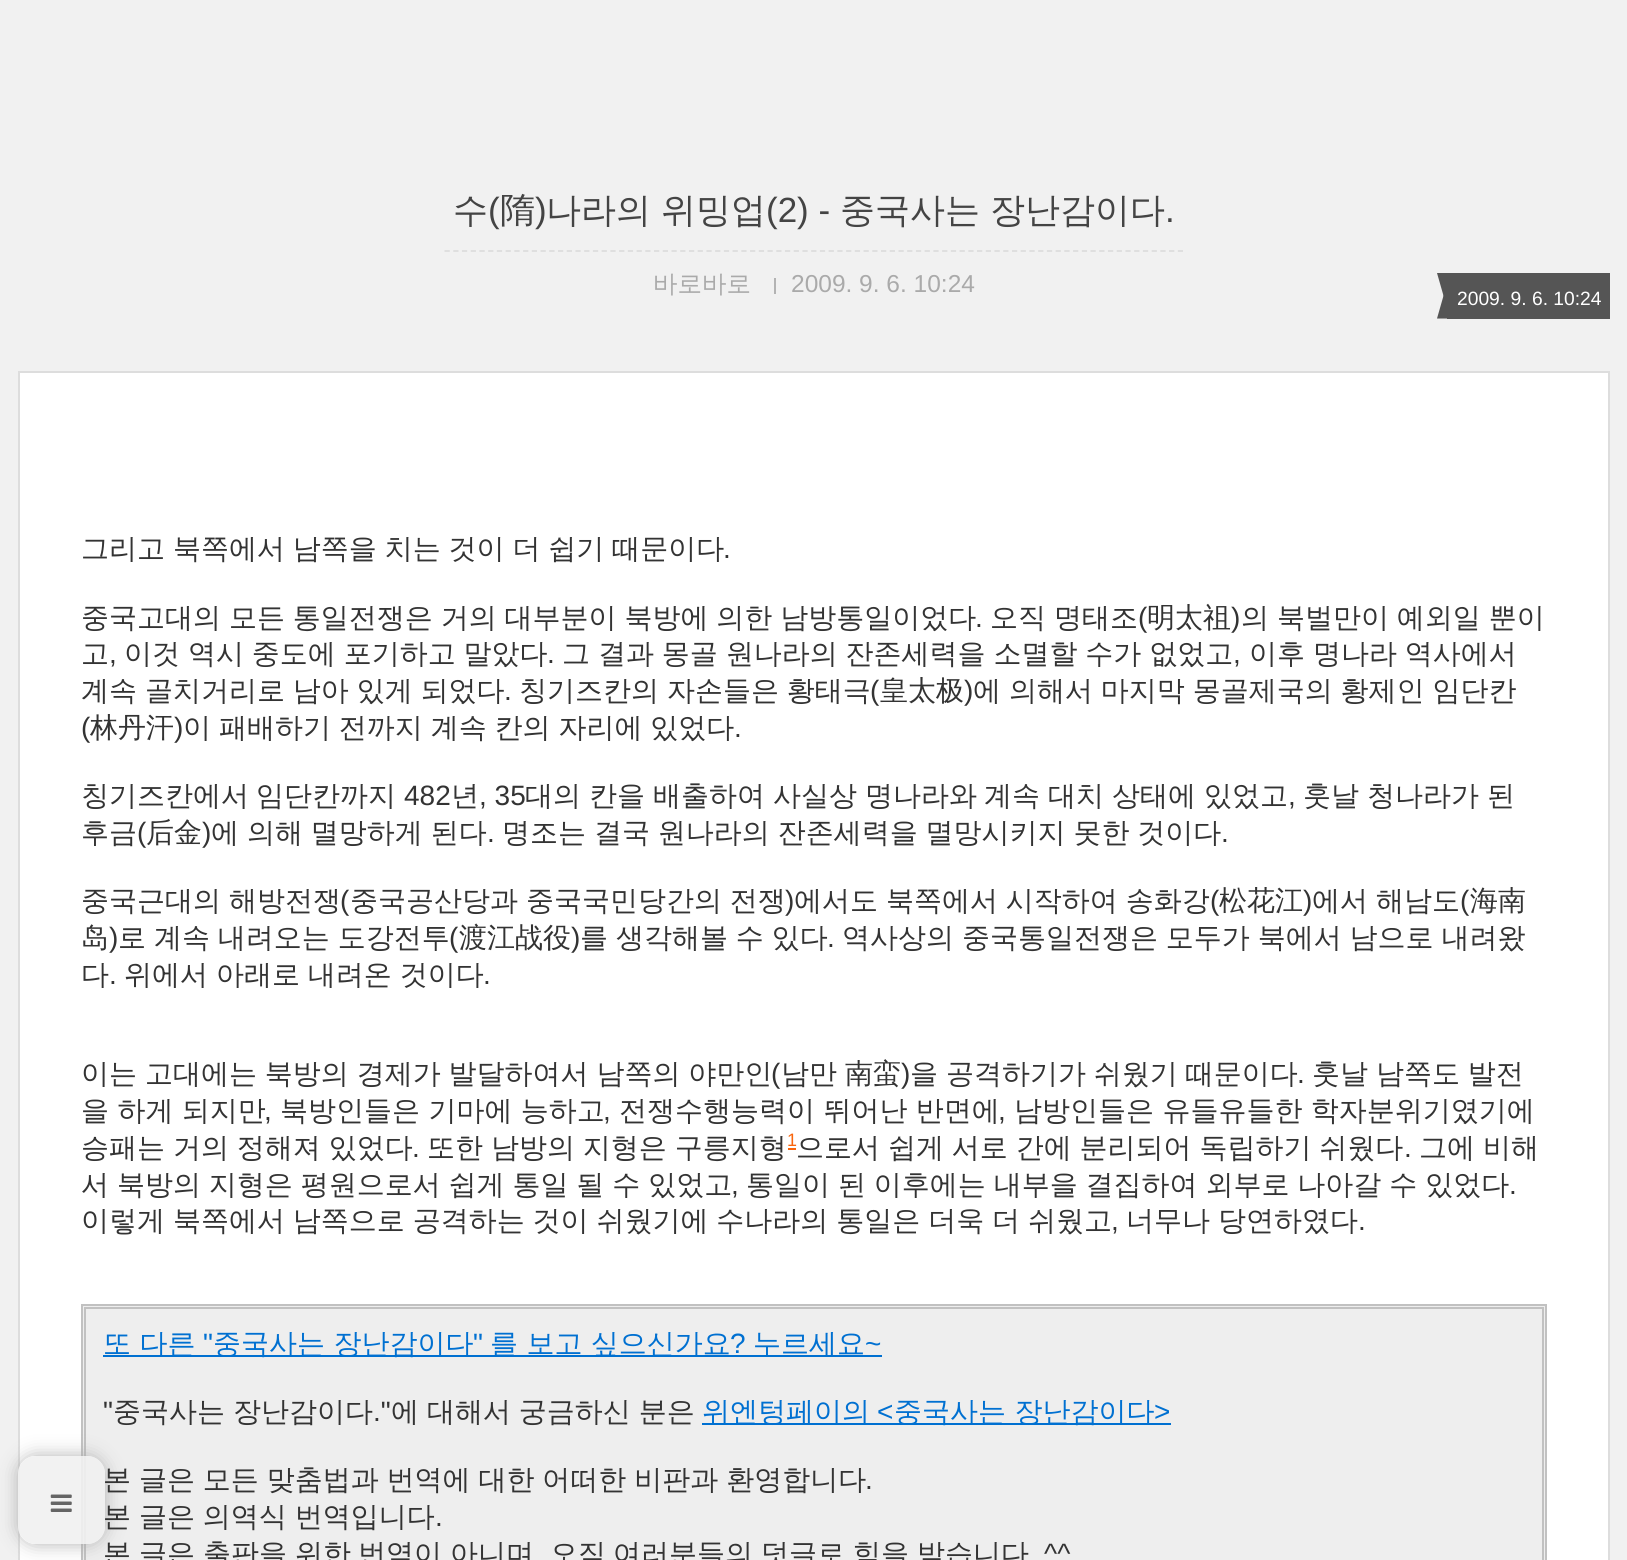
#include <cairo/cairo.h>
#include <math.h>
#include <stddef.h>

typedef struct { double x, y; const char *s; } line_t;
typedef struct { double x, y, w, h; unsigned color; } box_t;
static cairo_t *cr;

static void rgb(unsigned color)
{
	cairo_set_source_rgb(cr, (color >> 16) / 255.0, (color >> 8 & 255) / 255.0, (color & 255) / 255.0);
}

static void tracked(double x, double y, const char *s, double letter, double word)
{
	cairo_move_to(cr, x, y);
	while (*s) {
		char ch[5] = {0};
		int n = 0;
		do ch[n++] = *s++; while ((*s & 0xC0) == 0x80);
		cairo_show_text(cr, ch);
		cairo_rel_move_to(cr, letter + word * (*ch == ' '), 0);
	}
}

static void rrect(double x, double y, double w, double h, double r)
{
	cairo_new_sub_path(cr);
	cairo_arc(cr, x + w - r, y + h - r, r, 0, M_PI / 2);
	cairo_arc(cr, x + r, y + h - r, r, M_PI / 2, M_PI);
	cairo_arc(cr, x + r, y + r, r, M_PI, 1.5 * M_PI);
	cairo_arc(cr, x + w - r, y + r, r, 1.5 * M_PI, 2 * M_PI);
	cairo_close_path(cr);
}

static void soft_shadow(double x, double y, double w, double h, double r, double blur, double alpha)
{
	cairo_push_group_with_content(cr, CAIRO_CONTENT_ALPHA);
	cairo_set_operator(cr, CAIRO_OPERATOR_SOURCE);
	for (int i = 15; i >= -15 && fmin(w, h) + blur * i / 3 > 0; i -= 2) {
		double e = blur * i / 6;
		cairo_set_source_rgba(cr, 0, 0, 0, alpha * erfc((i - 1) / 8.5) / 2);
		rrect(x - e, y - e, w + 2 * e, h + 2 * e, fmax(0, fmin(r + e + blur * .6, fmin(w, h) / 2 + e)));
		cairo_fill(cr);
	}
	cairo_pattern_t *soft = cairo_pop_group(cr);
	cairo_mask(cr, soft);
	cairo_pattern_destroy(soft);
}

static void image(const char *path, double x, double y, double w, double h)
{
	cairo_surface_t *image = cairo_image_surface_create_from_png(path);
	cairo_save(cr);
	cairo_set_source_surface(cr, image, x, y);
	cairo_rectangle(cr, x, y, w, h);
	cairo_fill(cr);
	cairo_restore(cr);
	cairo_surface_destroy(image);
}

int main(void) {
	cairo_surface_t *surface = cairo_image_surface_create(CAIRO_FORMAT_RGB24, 1627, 1560);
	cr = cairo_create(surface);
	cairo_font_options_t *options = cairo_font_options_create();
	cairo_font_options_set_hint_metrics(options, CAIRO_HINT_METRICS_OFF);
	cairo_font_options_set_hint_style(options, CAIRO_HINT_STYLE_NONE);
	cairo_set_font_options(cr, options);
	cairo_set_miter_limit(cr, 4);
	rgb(0xf1f1f1);
	cairo_paint(cr);
	rgb(0xffffff);
	cairo_rectangle(cr, 19, 372, 1590, 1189);
	cairo_fill_preserve(cr);
	rgb(0xdddddd);
	cairo_stroke(cr);
	rgb(0xeeeeee);
	cairo_rectangle(cr, 82, 1305, 1464, 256);
	cairo_fill_preserve(cr);
	rgb(0xc1c1c1);
	cairo_stroke(cr);
	cairo_rectangle(cr, 85, 1308, 1458, 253);
	cairo_stroke(cr);
	cairo_save(cr);
	cairo_set_fill_rule(cr, CAIRO_FILL_RULE_EVEN_ODD);
	cairo_new_path(cr);
	cairo_move_to(cr, 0, 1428);
	cairo_line_to(cr, 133, 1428);
	cairo_line_to(cr, 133, 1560);
	cairo_line_to(cr, 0, 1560);
	cairo_close_path(cr);
	cairo_move_to(cr, 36, 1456);
	cairo_line_to(cr, 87, 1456);
	cairo_curve_to(cr, 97, 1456, 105, 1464, 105, 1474);
	cairo_line_to(cr, 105, 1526);
	cairo_curve_to(cr, 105, 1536, 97, 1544, 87, 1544);
	cairo_line_to(cr, 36, 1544);
	cairo_curve_to(cr, 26, 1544, 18, 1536, 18, 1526);
	cairo_line_to(cr, 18, 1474);
	cairo_curve_to(cr, 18, 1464, 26, 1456, 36, 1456);
	cairo_close_path(cr);
	cairo_clip(cr);
	rgb(0xaaaaaa);
	soft_shadow(18, 1456, 87, 88, 18, 9, 0.9);
	cairo_restore(cr);
	cairo_set_source_rgba(cr, 0.945, 0.945, 0.945, 0.9);
	rrect(18, 1456, 87, 88, 18);
	cairo_fill(cr);
	image("img/1.png", 50, 1494, 22, 18);
	cairo_new_path(cr);
	cairo_move_to(cr, 444.5, 251);
	cairo_line_to(cr, 1183, 251);
	rgb(0xdddddd);
	cairo_set_line_width(cr, 1.8);
	cairo_set_dash(cr, (double[]){5.25, 3.48}, 2, 0);
	cairo_stroke(cr);
	rgb(0xb3b3b3);
	cairo_rectangle(cr, 774, 278, 2, 16);
	cairo_fill(cr);
	rgb(0x555555);
	cairo_rectangle(cr, 1447, 273, 163, 46);
	cairo_fill(cr);
	cairo_new_path(cr);
	cairo_move_to(cr, 1437, 273);
	cairo_line_to(cr, 1447, 273);
	cairo_line_to(cr, 1447, 308);
	cairo_close_path(cr);
	cairo_fill(cr);
	cairo_new_path(cr);
	cairo_move_to(cr, 1447, 318.5);
	cairo_line_to(cr, 1437, 318.5);
	cairo_line_to(cr, 1447, 283.5);
	cairo_close_path(cr);
	cairo_fill(cr);
	{
		static const box_t items[] = {
			{788, 1148, 8, 2, 0xf9650d},
			{103, 1355, 779, 2, 0x0070d1},
			{702, 1423, 469, 2, 0x0070d1},
		};
		for (size_t i = 0; i < sizeof items / sizeof *items; i++) {
			rgb(items[i].color);
			cairo_rectangle(cr, items[i].x, items[i].y, items[i].w, items[i].h);
			cairo_fill(cr);
		}
	}
	cairo_select_font_face(cr, "WenQuanYi Zen Hei Medium", CAIRO_FONT_SLANT_NORMAL, CAIRO_FONT_WEIGHT_NORMAL);
	cairo_set_font_size(cr, 35);
	rgb(0x444444);
	cairo_move_to(cr, 453, 222);
	cairo_show_text(cr, "수");
	cairo_select_font_face(cr, "Liberation Sans", CAIRO_FONT_SLANT_NORMAL, CAIRO_FONT_WEIGHT_NORMAL);
	cairo_move_to(cr, 488, 222);
	cairo_show_text(cr, "(");
	cairo_select_font_face(cr, "WenQuanYi Zen Hei Medium", CAIRO_FONT_SLANT_NORMAL, CAIRO_FONT_WEIGHT_NORMAL);
	cairo_move_to(cr, 500, 222);
	cairo_show_text(cr, "隋");
	cairo_select_font_face(cr, "Liberation Sans", CAIRO_FONT_SLANT_NORMAL, CAIRO_FONT_WEIGHT_NORMAL);
	cairo_move_to(cr, 535, 222);
	cairo_show_text(cr, ")");
	cairo_select_font_face(cr, "WenQuanYi Zen Hei Medium", CAIRO_FONT_SLANT_NORMAL, CAIRO_FONT_WEIGHT_NORMAL);
	cairo_move_to(cr, 546, 222);
	cairo_show_text(cr, "나라의");
	cairo_move_to(cr, 661, 222);
	cairo_show_text(cr, "위밍업");
	cairo_select_font_face(cr, "Liberation Sans", CAIRO_FONT_SLANT_NORMAL, CAIRO_FONT_WEIGHT_NORMAL);
	cairo_move_to(cr, 766, 222);
	cairo_show_text(cr, "(2) -");
	cairo_select_font_face(cr, "WenQuanYi Zen Hei Medium", CAIRO_FONT_SLANT_NORMAL, CAIRO_FONT_WEIGHT_NORMAL);
	cairo_move_to(cr, 840, 222);
	cairo_show_text(cr, "중국사는");
	cairo_move_to(cr, 990, 222);
	cairo_show_text(cr, "장난감이다");
	cairo_select_font_face(cr, "Liberation Sans", CAIRO_FONT_SLANT_NORMAL, CAIRO_FONT_WEIGHT_NORMAL);
	cairo_move_to(cr, 1165, 222);
	cairo_show_text(cr, ".");
	cairo_select_font_face(cr, "WenQuanYi Zen Hei Medium", CAIRO_FONT_SLANT_NORMAL, CAIRO_FONT_WEIGHT_NORMAL);
	cairo_set_font_size(cr, 24.5);
	rgb(0xaaaaaa);
	cairo_move_to(cr, 653, 292);
	cairo_show_text(cr, "바로바로");
	cairo_select_font_face(cr, "Liberation Sans", CAIRO_FONT_SLANT_NORMAL, CAIRO_FONT_WEIGHT_NORMAL);
	cairo_move_to(cr, 791, 292);
	cairo_show_text(cr, "2009. 9. 6. 10:24");
	cairo_set_font_size(cr, 19.25);
	rgb(0xffffff);
	cairo_move_to(cr, 1457, 305);
	cairo_show_text(cr, "2009. 9. 6. 10:24");
	cairo_select_font_face(cr, "WenQuanYi Zen Hei Medium", CAIRO_FONT_SLANT_NORMAL, CAIRO_FONT_WEIGHT_NORMAL);
	cairo_set_font_size(cr, 28);
	rgb(0x333333);
	tracked(81, 558, "그리고 북쪽에서 남쪽을 치는 것이 더 쉽기 때문이다", 0, -0.5);
	cairo_select_font_face(cr, "Liberation Sans", CAIRO_FONT_SLANT_NORMAL, CAIRO_FONT_WEIGHT_NORMAL);
	cairo_move_to(cr, 723, 558);
	cairo_show_text(cr, ".");
	cairo_select_font_face(cr, "WenQuanYi Zen Hei Medium", CAIRO_FONT_SLANT_NORMAL, CAIRO_FONT_WEIGHT_NORMAL);
	tracked(81, 627, "중국고대의 모든 통일전쟁은 거의 대부분이 북방에 의한 남방통일이었다", 0, -0.5);
	cairo_select_font_face(cr, "Liberation Sans", CAIRO_FONT_SLANT_NORMAL, CAIRO_FONT_WEIGHT_NORMAL);
	cairo_move_to(cr, 975, 627);
	cairo_show_text(cr, ".");
	cairo_select_font_face(cr, "WenQuanYi Zen Hei Medium", CAIRO_FONT_SLANT_NORMAL, CAIRO_FONT_WEIGHT_NORMAL);
	tracked(990, 627, "오직 명태조", 0, -0.5);
	cairo_select_font_face(cr, "Liberation Sans", CAIRO_FONT_SLANT_NORMAL, CAIRO_FONT_WEIGHT_NORMAL);
	cairo_move_to(cr, 1138, 627);
	cairo_show_text(cr, "(");
	cairo_select_font_face(cr, "WenQuanYi Zen Hei Medium", CAIRO_FONT_SLANT_NORMAL, CAIRO_FONT_WEIGHT_NORMAL);
	cairo_move_to(cr, 1147, 627);
	cairo_show_text(cr, "明太祖");
	cairo_select_font_face(cr, "Liberation Sans", CAIRO_FONT_SLANT_NORMAL, CAIRO_FONT_WEIGHT_NORMAL);
	cairo_move_to(cr, 1231, 627);
	cairo_show_text(cr, ")");
	cairo_select_font_face(cr, "WenQuanYi Zen Hei Medium", CAIRO_FONT_SLANT_NORMAL, CAIRO_FONT_WEIGHT_NORMAL);
	tracked(1241, 627, "의 북벌만이 예외일 뿐이", 0, -0.5);
	cairo_move_to(cr, 81, 663);
	cairo_show_text(cr, "고");
	cairo_select_font_face(cr, "Liberation Sans", CAIRO_FONT_SLANT_NORMAL, CAIRO_FONT_WEIGHT_NORMAL);
	cairo_move_to(cr, 109, 663);
	cairo_show_text(cr, ",");
	cairo_select_font_face(cr, "WenQuanYi Zen Hei Medium", CAIRO_FONT_SLANT_NORMAL, CAIRO_FONT_WEIGHT_NORMAL);
	tracked(124, 663, "이것 역시 중도에 포기하고 말았다", 0, -0.5);
	cairo_select_font_face(cr, "Liberation Sans", CAIRO_FONT_SLANT_NORMAL, CAIRO_FONT_WEIGHT_NORMAL);
	cairo_move_to(cr, 547, 663);
	cairo_show_text(cr, ".");
	cairo_select_font_face(cr, "WenQuanYi Zen Hei Medium", CAIRO_FONT_SLANT_NORMAL, CAIRO_FONT_WEIGHT_NORMAL);
	tracked(562, 663, "그 결과 몽골 원나라의 잔존세력을 소멸할 수가 없었고", 0, -0.5);
	cairo_select_font_face(cr, "Liberation Sans", CAIRO_FONT_SLANT_NORMAL, CAIRO_FONT_WEIGHT_NORMAL);
	cairo_move_to(cr, 1233, 663);
	cairo_show_text(cr, ",");
	cairo_select_font_face(cr, "WenQuanYi Zen Hei Medium", CAIRO_FONT_SLANT_NORMAL, CAIRO_FONT_WEIGHT_NORMAL);
	tracked(1249, 663, "이후 명나라 역사에서", 0, -0.5);
	tracked(81, 700, "계속 골치거리로 남아 있게 되었다", 0, -0.5);
	cairo_select_font_face(cr, "Liberation Sans", CAIRO_FONT_SLANT_NORMAL, CAIRO_FONT_WEIGHT_NORMAL);
	cairo_move_to(cr, 504, 700);
	cairo_show_text(cr, ".");
	cairo_select_font_face(cr, "WenQuanYi Zen Hei Medium", CAIRO_FONT_SLANT_NORMAL, CAIRO_FONT_WEIGHT_NORMAL);
	tracked(519, 700, "칭기즈칸의 자손들은 황태극", 0, -0.5);
	cairo_select_font_face(cr, "Liberation Sans", CAIRO_FONT_SLANT_NORMAL, CAIRO_FONT_WEIGHT_NORMAL);
	cairo_move_to(cr, 870, 700);
	cairo_show_text(cr, "(");
	cairo_select_font_face(cr, "WenQuanYi Zen Hei Medium", CAIRO_FONT_SLANT_NORMAL, CAIRO_FONT_WEIGHT_NORMAL);
	cairo_move_to(cr, 880, 700);
	cairo_show_text(cr, "皇太极");
	cairo_select_font_face(cr, "Liberation Sans", CAIRO_FONT_SLANT_NORMAL, CAIRO_FONT_WEIGHT_NORMAL);
	cairo_move_to(cr, 964, 700);
	cairo_show_text(cr, ")");
	cairo_select_font_face(cr, "WenQuanYi Zen Hei Medium", CAIRO_FONT_SLANT_NORMAL, CAIRO_FONT_WEIGHT_NORMAL);
	tracked(973, 700, "에 의해서 마지막 몽골제국의 황제인 임단칸", 0, -0.5);
	cairo_select_font_face(cr, "Liberation Sans", CAIRO_FONT_SLANT_NORMAL, CAIRO_FONT_WEIGHT_NORMAL);
	cairo_move_to(cr, 81, 737);
	cairo_show_text(cr, "(");
	cairo_select_font_face(cr, "WenQuanYi Zen Hei Medium", CAIRO_FONT_SLANT_NORMAL, CAIRO_FONT_WEIGHT_NORMAL);
	cairo_move_to(cr, 90, 737);
	cairo_show_text(cr, "林丹汗");
	cairo_select_font_face(cr, "Liberation Sans", CAIRO_FONT_SLANT_NORMAL, CAIRO_FONT_WEIGHT_NORMAL);
	cairo_move_to(cr, 174, 737);
	cairo_show_text(cr, ")");
	cairo_select_font_face(cr, "WenQuanYi Zen Hei Medium", CAIRO_FONT_SLANT_NORMAL, CAIRO_FONT_WEIGHT_NORMAL);
	tracked(183, 737, "이 패배하기 전까지 계속 칸의 자리에 있었다", 0, -0.5);
	cairo_select_font_face(cr, "Liberation Sans", CAIRO_FONT_SLANT_NORMAL, CAIRO_FONT_WEIGHT_NORMAL);
	cairo_move_to(cr, 734, 737);
	cairo_show_text(cr, ".");
	cairo_select_font_face(cr, "WenQuanYi Zen Hei Medium", CAIRO_FONT_SLANT_NORMAL, CAIRO_FONT_WEIGHT_NORMAL);
	cairo_move_to(cr, 81, 805);
	cairo_show_text(cr, "칭기즈칸에서");
	cairo_move_to(cr, 256, 805);
	cairo_show_text(cr, "임단칸까지");
	cairo_select_font_face(cr, "Liberation Sans", CAIRO_FONT_SLANT_NORMAL, CAIRO_FONT_WEIGHT_NORMAL);
	cairo_move_to(cr, 404, 805);
	cairo_show_text(cr, "482");
	cairo_select_font_face(cr, "WenQuanYi Zen Hei Medium", CAIRO_FONT_SLANT_NORMAL, CAIRO_FONT_WEIGHT_NORMAL);
	cairo_move_to(cr, 451, 805);
	cairo_show_text(cr, "년");
	cairo_select_font_face(cr, "Liberation Sans", CAIRO_FONT_SLANT_NORMAL, CAIRO_FONT_WEIGHT_NORMAL);
	cairo_move_to(cr, 479, 805);
	cairo_show_text(cr, ", 35");
	cairo_select_font_face(cr, "WenQuanYi Zen Hei Medium", CAIRO_FONT_SLANT_NORMAL, CAIRO_FONT_WEIGHT_NORMAL);
	{
		static const line_t items[] = {
			{525, 805, "대의"},
			{589, 805, "칸을"},
			{653, 805, "배출하여"},
			{773, 805, "사실상"},
			{865, 805, "명나라와"},
			{984, 805, "계속"},
			{1048, 805, "대치"},
			{1112, 805, "상태에"},
			{1204, 805, "있었고"},
		};
		for (size_t i = 0; i < sizeof items / sizeof *items; i++) {
			cairo_move_to(cr, items[i].x, items[i].y);
			cairo_show_text(cr, items[i].s);
		}
	}
	cairo_select_font_face(cr, "Liberation Sans", CAIRO_FONT_SLANT_NORMAL, CAIRO_FONT_WEIGHT_NORMAL);
	cairo_move_to(cr, 1288, 805);
	cairo_show_text(cr, ",");
	cairo_select_font_face(cr, "WenQuanYi Zen Hei Medium", CAIRO_FONT_SLANT_NORMAL, CAIRO_FONT_WEIGHT_NORMAL);
	{
		static const line_t items[] = {
			{1303, 805, "훗날"},
			{1367, 805, "청나라가"},
			{1487, 805, "된"},
			{81, 842, "후금"},
		};
		for (size_t i = 0; i < sizeof items / sizeof *items; i++) {
			cairo_move_to(cr, items[i].x, items[i].y);
			cairo_show_text(cr, items[i].s);
		}
	}
	cairo_select_font_face(cr, "Liberation Sans", CAIRO_FONT_SLANT_NORMAL, CAIRO_FONT_WEIGHT_NORMAL);
	cairo_move_to(cr, 137, 842);
	cairo_show_text(cr, "(");
	cairo_select_font_face(cr, "WenQuanYi Zen Hei Medium", CAIRO_FONT_SLANT_NORMAL, CAIRO_FONT_WEIGHT_NORMAL);
	cairo_move_to(cr, 146, 842);
	cairo_show_text(cr, "后金");
	cairo_select_font_face(cr, "Liberation Sans", CAIRO_FONT_SLANT_NORMAL, CAIRO_FONT_WEIGHT_NORMAL);
	cairo_move_to(cr, 202, 842);
	cairo_show_text(cr, ")");
	cairo_select_font_face(cr, "WenQuanYi Zen Hei Medium", CAIRO_FONT_SLANT_NORMAL, CAIRO_FONT_WEIGHT_NORMAL);
	tracked(211, 842, "에 의해 멸망하게 된다", 0, -0.5);
	cairo_select_font_face(cr, "Liberation Sans", CAIRO_FONT_SLANT_NORMAL, CAIRO_FONT_WEIGHT_NORMAL);
	cairo_move_to(cr, 487, 842);
	cairo_show_text(cr, ".");
	cairo_select_font_face(cr, "WenQuanYi Zen Hei Medium", CAIRO_FONT_SLANT_NORMAL, CAIRO_FONT_WEIGHT_NORMAL);
	tracked(502, 842, "명조는 결국 원나라의 잔존세력을 멸망시키지 못한 것이다", 0, -0.5);
	cairo_select_font_face(cr, "Liberation Sans", CAIRO_FONT_SLANT_NORMAL, CAIRO_FONT_WEIGHT_NORMAL);
	cairo_move_to(cr, 1221, 842);
	cairo_show_text(cr, ".");
	cairo_select_font_face(cr, "WenQuanYi Zen Hei Medium", CAIRO_FONT_SLANT_NORMAL, CAIRO_FONT_WEIGHT_NORMAL);
	tracked(81, 910, "중국근대의 해방전쟁", 0, -0.5);
	cairo_select_font_face(cr, "Liberation Sans", CAIRO_FONT_SLANT_NORMAL, CAIRO_FONT_WEIGHT_NORMAL);
	cairo_move_to(cr, 340, 910);
	cairo_show_text(cr, "(");
	cairo_select_font_face(cr, "WenQuanYi Zen Hei Medium", CAIRO_FONT_SLANT_NORMAL, CAIRO_FONT_WEIGHT_NORMAL);
	tracked(350, 910, "중국공산당과 중국국민당간의 전쟁", 0, -0.5);
	cairo_select_font_face(cr, "Liberation Sans", CAIRO_FONT_SLANT_NORMAL, CAIRO_FONT_WEIGHT_NORMAL);
	cairo_move_to(cr, 785, 910);
	cairo_show_text(cr, ")");
	cairo_select_font_face(cr, "WenQuanYi Zen Hei Medium", CAIRO_FONT_SLANT_NORMAL, CAIRO_FONT_WEIGHT_NORMAL);
	tracked(794, 910, "에서도 북쪽에서 시작하여 송화강", 0, -0.5);
	cairo_select_font_face(cr, "Liberation Sans", CAIRO_FONT_SLANT_NORMAL, CAIRO_FONT_WEIGHT_NORMAL);
	cairo_move_to(cr, 1210, 910);
	cairo_show_text(cr, "(");
	cairo_select_font_face(cr, "WenQuanYi Zen Hei Medium", CAIRO_FONT_SLANT_NORMAL, CAIRO_FONT_WEIGHT_NORMAL);
	cairo_move_to(cr, 1219, 910);
	cairo_show_text(cr, "松花江");
	cairo_select_font_face(cr, "Liberation Sans", CAIRO_FONT_SLANT_NORMAL, CAIRO_FONT_WEIGHT_NORMAL);
	cairo_move_to(cr, 1303, 910);
	cairo_show_text(cr, ")");
	cairo_select_font_face(cr, "WenQuanYi Zen Hei Medium", CAIRO_FONT_SLANT_NORMAL, CAIRO_FONT_WEIGHT_NORMAL);
	tracked(1312, 910, "에서 해남도", 0, -0.5);
	cairo_select_font_face(cr, "Liberation Sans", CAIRO_FONT_SLANT_NORMAL, CAIRO_FONT_WEIGHT_NORMAL);
	cairo_move_to(cr, 1460, 910);
	cairo_show_text(cr, "(");
	cairo_select_font_face(cr, "WenQuanYi Zen Hei Medium", CAIRO_FONT_SLANT_NORMAL, CAIRO_FONT_WEIGHT_NORMAL);
	cairo_move_to(cr, 1470, 910);
	cairo_show_text(cr, "海南");
	cairo_move_to(cr, 81, 947);
	cairo_show_text(cr, "岛");
	cairo_select_font_face(cr, "Liberation Sans", CAIRO_FONT_SLANT_NORMAL, CAIRO_FONT_WEIGHT_NORMAL);
	cairo_move_to(cr, 109, 947);
	cairo_show_text(cr, ")");
	cairo_select_font_face(cr, "WenQuanYi Zen Hei Medium", CAIRO_FONT_SLANT_NORMAL, CAIRO_FONT_WEIGHT_NORMAL);
	tracked(118, 947, "로 계속 내려오는 도강전투", 0, -0.5);
	cairo_select_font_face(cr, "Liberation Sans", CAIRO_FONT_SLANT_NORMAL, CAIRO_FONT_WEIGHT_NORMAL);
	cairo_move_to(cr, 449, 947);
	cairo_show_text(cr, "(");
	cairo_select_font_face(cr, "WenQuanYi Zen Hei Medium", CAIRO_FONT_SLANT_NORMAL, CAIRO_FONT_WEIGHT_NORMAL);
	cairo_move_to(cr, 459, 947);
	cairo_show_text(cr, "渡江战役");
	cairo_select_font_face(cr, "Liberation Sans", CAIRO_FONT_SLANT_NORMAL, CAIRO_FONT_WEIGHT_NORMAL);
	cairo_move_to(cr, 571, 947);
	cairo_show_text(cr, ")");
	cairo_select_font_face(cr, "WenQuanYi Zen Hei Medium", CAIRO_FONT_SLANT_NORMAL, CAIRO_FONT_WEIGHT_NORMAL);
	tracked(580, 947, "를 생각해볼 수 있다", 0, -0.5);
	cairo_select_font_face(cr, "Liberation Sans", CAIRO_FONT_SLANT_NORMAL, CAIRO_FONT_WEIGHT_NORMAL);
	cairo_move_to(cr, 827, 947);
	cairo_show_text(cr, ".");
	cairo_select_font_face(cr, "WenQuanYi Zen Hei Medium", CAIRO_FONT_SLANT_NORMAL, CAIRO_FONT_WEIGHT_NORMAL);
	tracked(842, 947, "역사상의 중국통일전쟁은 모두가 북에서 남으로 내려왔", 0, -0.5);
	cairo_move_to(cr, 81, 984);
	cairo_show_text(cr, "다");
	cairo_select_font_face(cr, "Liberation Sans", CAIRO_FONT_SLANT_NORMAL, CAIRO_FONT_WEIGHT_NORMAL);
	cairo_move_to(cr, 109, 984);
	cairo_show_text(cr, ".");
	cairo_select_font_face(cr, "WenQuanYi Zen Hei Medium", CAIRO_FONT_SLANT_NORMAL, CAIRO_FONT_WEIGHT_NORMAL);
	tracked(124, 984, "위에서 아래로 내려온 것이다", 0, -0.5);
	cairo_select_font_face(cr, "Liberation Sans", CAIRO_FONT_SLANT_NORMAL, CAIRO_FONT_WEIGHT_NORMAL);
	cairo_move_to(cr, 483, 984);
	cairo_show_text(cr, ".");
	cairo_select_font_face(cr, "WenQuanYi Zen Hei Medium", CAIRO_FONT_SLANT_NORMAL, CAIRO_FONT_WEIGHT_NORMAL);
	tracked(81, 1083, "이는 고대에는 북방의 경제가 발달하여서 남쪽의 야만인", 0, -0.5);
	cairo_select_font_face(cr, "Liberation Sans", CAIRO_FONT_SLANT_NORMAL, CAIRO_FONT_WEIGHT_NORMAL);
	cairo_move_to(cr, 771, 1083);
	cairo_show_text(cr, "(");
	cairo_select_font_face(cr, "WenQuanYi Zen Hei Medium", CAIRO_FONT_SLANT_NORMAL, CAIRO_FONT_WEIGHT_NORMAL);
	tracked(781, 1083, "남만 南蛮", 0, -0.5);
	cairo_select_font_face(cr, "Liberation Sans", CAIRO_FONT_SLANT_NORMAL, CAIRO_FONT_WEIGHT_NORMAL);
	cairo_move_to(cr, 901, 1083);
	cairo_show_text(cr, ")");
	cairo_select_font_face(cr, "WenQuanYi Zen Hei Medium", CAIRO_FONT_SLANT_NORMAL, CAIRO_FONT_WEIGHT_NORMAL);
	tracked(910, 1083, "을 공격하기가 쉬웠기 때문이다", 0, -0.5);
	cairo_select_font_face(cr, "Liberation Sans", CAIRO_FONT_SLANT_NORMAL, CAIRO_FONT_WEIGHT_NORMAL);
	cairo_move_to(cr, 1297, 1083);
	cairo_show_text(cr, ".");
	cairo_select_font_face(cr, "WenQuanYi Zen Hei Medium", CAIRO_FONT_SLANT_NORMAL, CAIRO_FONT_WEIGHT_NORMAL);
	tracked(1312, 1083, "훗날 남쪽도 발전", 0, -0.5);
	cairo_move_to(cr, 81, 1120);
	cairo_show_text(cr, "을 하게 되지만");
	cairo_select_font_face(cr, "Liberation Sans", CAIRO_FONT_SLANT_NORMAL, CAIRO_FONT_WEIGHT_NORMAL);
	cairo_move_to(cr, 264, 1120);
	cairo_show_text(cr, ",");
	cairo_select_font_face(cr, "WenQuanYi Zen Hei Medium", CAIRO_FONT_SLANT_NORMAL, CAIRO_FONT_WEIGHT_NORMAL);
	cairo_move_to(cr, 280, 1120);
	cairo_show_text(cr, "북방인들은 기마에 능하고");
	cairo_select_font_face(cr, "Liberation Sans", CAIRO_FONT_SLANT_NORMAL, CAIRO_FONT_WEIGHT_NORMAL);
	cairo_move_to(cr, 603, 1120);
	cairo_show_text(cr, ",");
	cairo_select_font_face(cr, "WenQuanYi Zen Hei Medium", CAIRO_FONT_SLANT_NORMAL, CAIRO_FONT_WEIGHT_NORMAL);
	cairo_move_to(cr, 619, 1120);
	cairo_show_text(cr, "전쟁수행능력이 뛰어난 반면에");
	cairo_select_font_face(cr, "Liberation Sans", CAIRO_FONT_SLANT_NORMAL, CAIRO_FONT_WEIGHT_NORMAL);
	cairo_move_to(cr, 998, 1120);
	cairo_show_text(cr, ",");
	cairo_select_font_face(cr, "WenQuanYi Zen Hei Medium", CAIRO_FONT_SLANT_NORMAL, CAIRO_FONT_WEIGHT_NORMAL);
	cairo_move_to(cr, 1014, 1120);
	cairo_show_text(cr, "남방인들은 유들유들한 학자분위기였기에");
	tracked(81, 1157, "승패는 거의 정해져 있었다", 0, -0.5);
	cairo_select_font_face(cr, "Liberation Sans", CAIRO_FONT_SLANT_NORMAL, CAIRO_FONT_WEIGHT_NORMAL);
	cairo_move_to(cr, 412, 1157);
	cairo_show_text(cr, ".");
	cairo_select_font_face(cr, "WenQuanYi Zen Hei Medium", CAIRO_FONT_SLANT_NORMAL, CAIRO_FONT_WEIGHT_NORMAL);
	tracked(427, 1157, "또한 남방의 지형은 구릉지형", 0, -0.5);
	cairo_select_font_face(cr, "Liberation Sans", CAIRO_FONT_SLANT_NORMAL, CAIRO_FONT_WEIGHT_NORMAL);
	cairo_set_font_size(cr, 18);
	rgb(0xf9650d);
	cairo_move_to(cr, 787, 1146);
	cairo_show_text(cr, "1");
	cairo_select_font_face(cr, "WenQuanYi Zen Hei Medium", CAIRO_FONT_SLANT_NORMAL, CAIRO_FONT_WEIGHT_NORMAL);
	cairo_set_font_size(cr, 28);
	rgb(0x333333);
	tracked(796, 1157, "으로서 쉽게 서로 간에 분리되어 독립하기 쉬웠다", 0, -0.5);
	cairo_select_font_face(cr, "Liberation Sans", CAIRO_FONT_SLANT_NORMAL, CAIRO_FONT_WEIGHT_NORMAL);
	cairo_move_to(cr, 1404, 1157);
	cairo_show_text(cr, ".");
	cairo_select_font_face(cr, "WenQuanYi Zen Hei Medium", CAIRO_FONT_SLANT_NORMAL, CAIRO_FONT_WEIGHT_NORMAL);
	tracked(1419, 1157, "그에 비해", 0, -0.5);
	tracked(81, 1194, "서 북방의 지형은 평원으로서 쉽게 통일 될 수 있었고", 0, -0.5);
	cairo_select_font_face(cr, "Liberation Sans", CAIRO_FONT_SLANT_NORMAL, CAIRO_FONT_WEIGHT_NORMAL);
	cairo_move_to(cr, 731, 1194);
	cairo_show_text(cr, ",");
	cairo_select_font_face(cr, "WenQuanYi Zen Hei Medium", CAIRO_FONT_SLANT_NORMAL, CAIRO_FONT_WEIGHT_NORMAL);
	tracked(746, 1194, "통일이 된 이후에는 내부을 결집하여 외부로 나아갈 수 있었다", 0, -0.5);
	cairo_select_font_face(cr, "Liberation Sans", CAIRO_FONT_SLANT_NORMAL, CAIRO_FONT_WEIGHT_NORMAL);
	cairo_move_to(cr, 1509, 1194);
	cairo_show_text(cr, ".");
	cairo_select_font_face(cr, "WenQuanYi Zen Hei Medium", CAIRO_FONT_SLANT_NORMAL, CAIRO_FONT_WEIGHT_NORMAL);
	tracked(81, 1230, "이렇게 북쪽에서 남쪽으로 공격하는 것이 쉬웠기에 수나라의 통일은 더욱 더 쉬웠고", 0, -0.5);
	cairo_select_font_face(cr, "Liberation Sans", CAIRO_FONT_SLANT_NORMAL, CAIRO_FONT_WEIGHT_NORMAL);
	cairo_move_to(cr, 1111, 1230);
	cairo_show_text(cr, ",");
	cairo_select_font_face(cr, "WenQuanYi Zen Hei Medium", CAIRO_FONT_SLANT_NORMAL, CAIRO_FONT_WEIGHT_NORMAL);
	tracked(1126, 1230, "너무나 당연하였다", 0, -0.5);
	cairo_select_font_face(cr, "Liberation Sans", CAIRO_FONT_SLANT_NORMAL, CAIRO_FONT_WEIGHT_NORMAL);
	cairo_move_to(cr, 1358, 1230);
	cairo_show_text(cr, ".");
	cairo_select_font_face(cr, "WenQuanYi Zen Hei Medium", CAIRO_FONT_SLANT_NORMAL, CAIRO_FONT_WEIGHT_NORMAL);
	rgb(0x0070d1);
	cairo_move_to(cr, 103, 1353);
	cairo_show_text(cr, "또 다른");
	cairo_select_font_face(cr, "Liberation Sans", CAIRO_FONT_SLANT_NORMAL, CAIRO_FONT_WEIGHT_NORMAL);
	cairo_move_to(cr, 203, 1353);
	cairo_show_text(cr, "\"");
	cairo_select_font_face(cr, "WenQuanYi Zen Hei Medium", CAIRO_FONT_SLANT_NORMAL, CAIRO_FONT_WEIGHT_NORMAL);
	cairo_move_to(cr, 213, 1353);
	cairo_show_text(cr, "중국사는 장난감이다");
	cairo_select_font_face(cr, "Liberation Sans", CAIRO_FONT_SLANT_NORMAL, CAIRO_FONT_WEIGHT_NORMAL);
	cairo_move_to(cr, 473, 1353);
	cairo_show_text(cr, "\"");
	cairo_select_font_face(cr, "WenQuanYi Zen Hei Medium", CAIRO_FONT_SLANT_NORMAL, CAIRO_FONT_WEIGHT_NORMAL);
	cairo_move_to(cr, 490, 1353);
	cairo_show_text(cr, "를 보고 싶으신가요");
	cairo_select_font_face(cr, "Liberation Sans", CAIRO_FONT_SLANT_NORMAL, CAIRO_FONT_WEIGHT_NORMAL);
	cairo_move_to(cr, 730, 1353);
	cairo_show_text(cr, "?");
	cairo_select_font_face(cr, "WenQuanYi Zen Hei Medium", CAIRO_FONT_SLANT_NORMAL, CAIRO_FONT_WEIGHT_NORMAL);
	cairo_move_to(cr, 753, 1353);
	cairo_show_text(cr, "누르세요");
	cairo_select_font_face(cr, "Liberation Sans", CAIRO_FONT_SLANT_NORMAL, CAIRO_FONT_WEIGHT_NORMAL);
	cairo_move_to(cr, 865, 1353);
	cairo_show_text(cr, "~");
	rgb(0x333333);
	cairo_move_to(cr, 103, 1421);
	cairo_show_text(cr, "\"");
	cairo_select_font_face(cr, "WenQuanYi Zen Hei Medium", CAIRO_FONT_SLANT_NORMAL, CAIRO_FONT_WEIGHT_NORMAL);
	tracked(113, 1421, "중국사는 장난감이다", 0, -0.5);
	cairo_select_font_face(cr, "Liberation Sans", CAIRO_FONT_SLANT_NORMAL, CAIRO_FONT_WEIGHT_NORMAL);
	cairo_move_to(cr, 373, 1421);
	cairo_show_text(cr, ".\"");
	cairo_select_font_face(cr, "WenQuanYi Zen Hei Medium", CAIRO_FONT_SLANT_NORMAL, CAIRO_FONT_WEIGHT_NORMAL);
	tracked(391, 1421, "에 대해서 궁금하신 분은", 0, -0.5);
	rgb(0x0070d1);
	cairo_move_to(cr, 702, 1421);
	cairo_show_text(cr, "위엔텅페이의");
	cairo_select_font_face(cr, "Liberation Sans", CAIRO_FONT_SLANT_NORMAL, CAIRO_FONT_WEIGHT_NORMAL);
	cairo_move_to(cr, 877, 1421);
	cairo_show_text(cr, "<");
	cairo_select_font_face(cr, "WenQuanYi Zen Hei Medium", CAIRO_FONT_SLANT_NORMAL, CAIRO_FONT_WEIGHT_NORMAL);
	cairo_move_to(cr, 894, 1421);
	cairo_show_text(cr, "중국사는 장난감이다");
	cairo_select_font_face(cr, "Liberation Sans", CAIRO_FONT_SLANT_NORMAL, CAIRO_FONT_WEIGHT_NORMAL);
	cairo_move_to(cr, 1154, 1421);
	cairo_show_text(cr, ">");
	cairo_select_font_face(cr, "WenQuanYi Zen Hei Medium", CAIRO_FONT_SLANT_NORMAL, CAIRO_FONT_WEIGHT_NORMAL);
	rgb(0x333333);
	tracked(103, 1489, "본 글은 모든 맞춤법과 번역에 대한 어떠한 비판과 환영합니다", 0, -0.5);
	cairo_select_font_face(cr, "Liberation Sans", CAIRO_FONT_SLANT_NORMAL, CAIRO_FONT_WEIGHT_NORMAL);
	cairo_move_to(cr, 865, 1489);
	cairo_show_text(cr, ".");
	cairo_select_font_face(cr, "WenQuanYi Zen Hei Medium", CAIRO_FONT_SLANT_NORMAL, CAIRO_FONT_WEIGHT_NORMAL);
	tracked(103, 1526, "본 글은 의역식 번역입니다", 0, -0.5);
	cairo_select_font_face(cr, "Liberation Sans", CAIRO_FONT_SLANT_NORMAL, CAIRO_FONT_WEIGHT_NORMAL);
	cairo_move_to(cr, 435, 1526);
	cairo_show_text(cr, ".");
	cairo_select_font_face(cr, "WenQuanYi Zen Hei Medium", CAIRO_FONT_SLANT_NORMAL, CAIRO_FONT_WEIGHT_NORMAL);
	{
		static const line_t items[] = {
			{103, 1563, "본"},
			{139, 1563, "글은"},
			{203, 1563, "출판을"},
			{295, 1563, "위한"},
			{358, 1563, "번역이"},
			{450, 1563, "아니며"},
			{550, 1563, "오직"},
			{613, 1563, "여러분들의"},
			{761, 1563, "덧글로"},
			{853, 1563, "힘을"},
			{917, 1563, "받습니다"},
		};
		for (size_t i = 0; i < sizeof items / sizeof *items; i++) {
			cairo_move_to(cr, items[i].x, items[i].y);
			cairo_show_text(cr, items[i].s);
		}
	}
	cairo_select_font_face(cr, "Liberation Sans", CAIRO_FONT_SLANT_NORMAL, CAIRO_FONT_WEIGHT_NORMAL);
	cairo_move_to(cr, 1044, 1563);
	cairo_show_text(cr, "^^");
	cairo_surface_write_to_png(surface, "page.png");
	cairo_font_options_destroy(options);
	cairo_destroy(cr);
	cairo_surface_destroy(surface);
	return 0;
}
